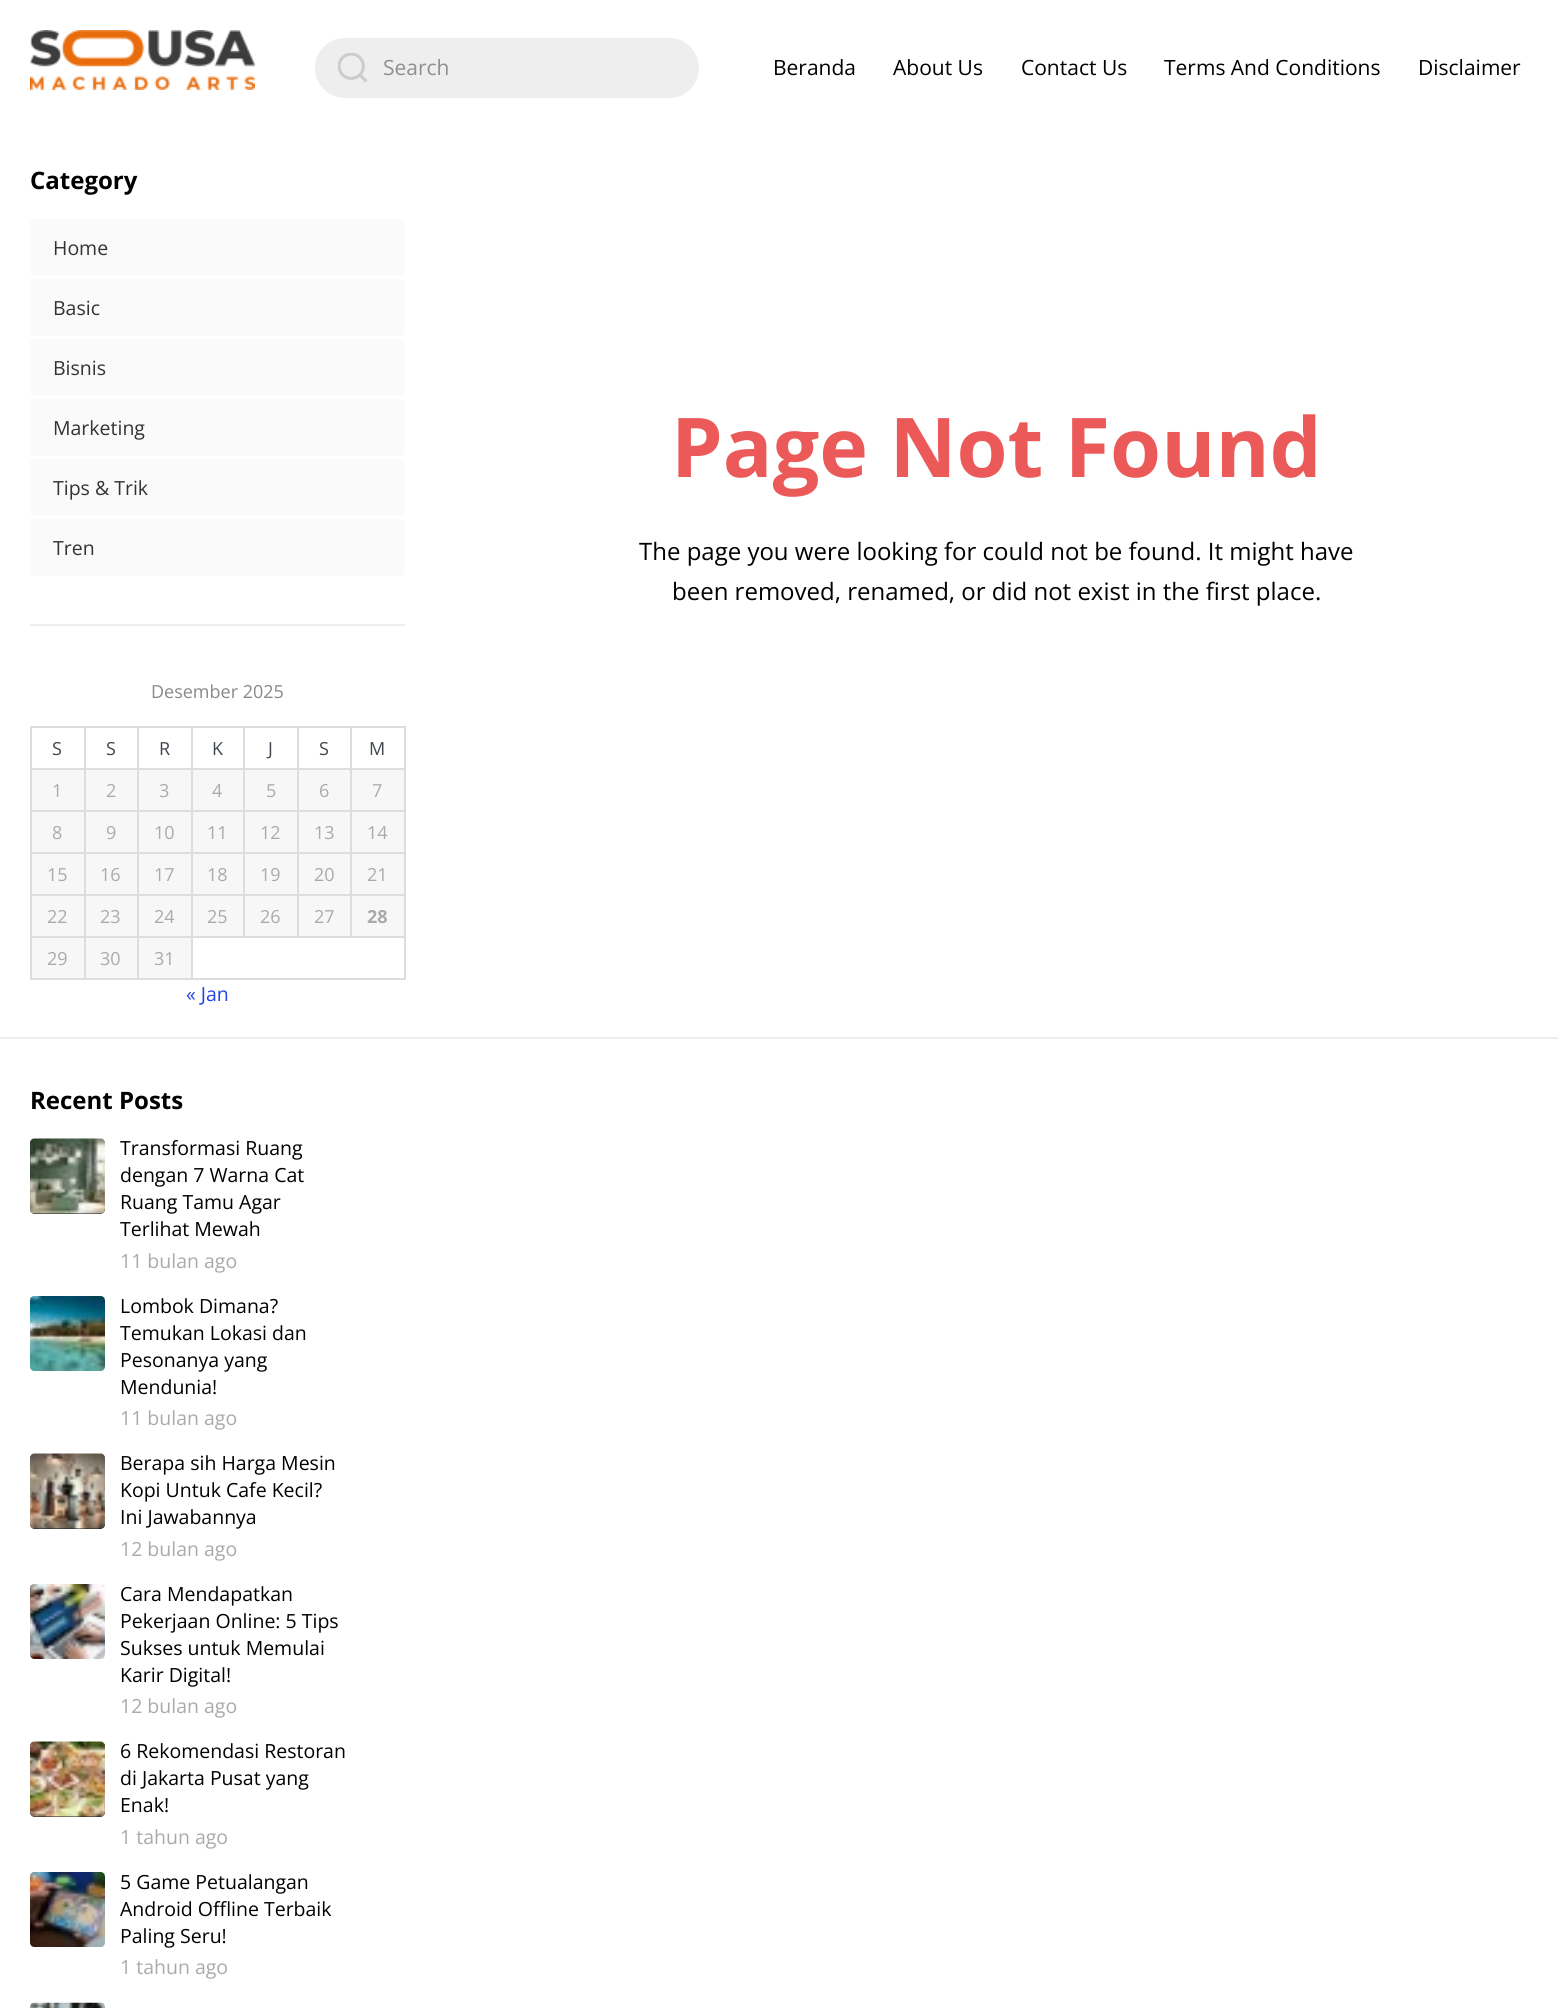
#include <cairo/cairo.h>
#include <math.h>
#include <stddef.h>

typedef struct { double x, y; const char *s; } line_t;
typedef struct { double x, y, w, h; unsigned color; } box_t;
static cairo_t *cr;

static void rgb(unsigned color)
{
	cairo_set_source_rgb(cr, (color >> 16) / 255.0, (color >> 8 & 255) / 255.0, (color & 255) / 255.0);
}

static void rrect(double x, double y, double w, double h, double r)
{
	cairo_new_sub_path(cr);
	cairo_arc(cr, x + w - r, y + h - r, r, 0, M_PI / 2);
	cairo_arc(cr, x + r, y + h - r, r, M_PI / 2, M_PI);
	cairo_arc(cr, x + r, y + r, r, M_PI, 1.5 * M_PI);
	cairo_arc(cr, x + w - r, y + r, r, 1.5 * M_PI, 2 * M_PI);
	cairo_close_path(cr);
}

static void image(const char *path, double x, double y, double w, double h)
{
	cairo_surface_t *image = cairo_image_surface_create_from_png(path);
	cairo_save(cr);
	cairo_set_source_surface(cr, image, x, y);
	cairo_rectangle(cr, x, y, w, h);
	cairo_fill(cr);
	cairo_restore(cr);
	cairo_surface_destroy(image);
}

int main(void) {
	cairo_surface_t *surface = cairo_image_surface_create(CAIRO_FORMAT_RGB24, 1558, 2008);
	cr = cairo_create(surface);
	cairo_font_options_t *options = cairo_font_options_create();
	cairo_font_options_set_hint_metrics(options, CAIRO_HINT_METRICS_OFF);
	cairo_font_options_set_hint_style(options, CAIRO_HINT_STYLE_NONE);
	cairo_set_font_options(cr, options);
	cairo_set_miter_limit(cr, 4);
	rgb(0xffffff);
	cairo_paint(cr);
	image("img/1.png", 30, 30, 225, 60);
	rgb(0xeeeeee);
	rrect(315, 38, 384, 60, 30);
	cairo_fill(cr);
	image("img/2.png", 338, 53, 30, 30);
	cairo_rectangle(cr, 30, 624, 375, 2);
	cairo_fill(cr);
	rgb(0xfafafa);
	rrect(30, 219, 375, 57, 5);
	cairo_fill(cr);
	rrect(30, 279, 375, 57, 5);
	cairo_fill(cr);
	rrect(30, 339, 375, 57, 5);
	cairo_fill(cr);
	rrect(30, 399, 375, 57, 5);
	cairo_fill(cr);
	rrect(30, 459, 375, 57, 5);
	cairo_fill(cr);
	rrect(30, 519, 375, 57, 5);
	cairo_fill(cr);
	{
		static const box_t items[] = {
			{350, 726, 55, 2, 0xdddddd},
			{350, 768, 55, 2, 0xdddddd},
			{350, 810, 55, 2, 0xdddddd},
			{350, 852, 55, 2, 0xdddddd},
			{350, 894, 55, 2, 0xdddddd},
			{191, 936, 214, 2, 0xdddddd},
			{350, 894, 2, 44, 0xdddddd},
			{297, 894, 54, 2, 0xdddddd},
			{350, 852, 2, 44, 0xdddddd},
			{297, 852, 54, 2, 0xdddddd},
			{350, 810, 2, 44, 0xdddddd},
			{297, 810, 54, 2, 0xdddddd},
			{350, 768, 2, 44, 0xdddddd},
			{297, 768, 54, 2, 0xdddddd},
			{350, 726, 2, 44, 0xdddddd},
			{297, 726, 54, 2, 0xdddddd},
			{297, 894, 2, 44, 0xdddddd},
			{243, 894, 56, 2, 0xdddddd},
			{297, 852, 2, 44, 0xdddddd},
			{243, 852, 56, 2, 0xdddddd},
			{297, 810, 2, 44, 0xdddddd},
			{243, 810, 56, 2, 0xdddddd},
			{297, 768, 2, 44, 0xdddddd},
			{243, 768, 56, 2, 0xdddddd},
			{297, 726, 2, 44, 0xdddddd},
			{243, 726, 56, 2, 0xdddddd},
			{243, 894, 2, 44, 0xdddddd},
			{191, 894, 54, 2, 0xdddddd},
			{243, 852, 2, 44, 0xdddddd},
			{191, 852, 54, 2, 0xdddddd},
			{243, 810, 2, 44, 0xdddddd},
			{191, 810, 54, 2, 0xdddddd},
			{243, 768, 2, 44, 0xdddddd},
			{191, 768, 54, 2, 0xdddddd},
			{243, 726, 2, 44, 0xdddddd},
			{191, 726, 54, 2, 0xdddddd},
			{404, 936, 2, 44, 0xdddddd},
			{191, 978, 214, 2, 0xdddddd},
			{191, 936, 2, 44, 0xdddddd},
			{137, 936, 55, 2, 0xdddddd},
			{191, 894, 2, 44, 0xdddddd},
			{137, 894, 55, 2, 0xdddddd},
			{191, 852, 2, 44, 0xdddddd},
			{137, 852, 55, 2, 0xdddddd},
			{191, 810, 2, 44, 0xdddddd},
			{137, 810, 55, 2, 0xdddddd},
			{191, 768, 2, 44, 0xdddddd},
			{137, 768, 55, 2, 0xdddddd},
			{191, 726, 2, 44, 0xdddddd},
			{137, 726, 55, 2, 0xdddddd},
			{137, 978, 55, 2, 0xdddddd},
			{137, 936, 2, 44, 0xdddddd},
			{84, 936, 54, 2, 0xdddddd},
			{137, 894, 2, 44, 0xdddddd},
			{84, 894, 54, 2, 0xdddddd},
			{137, 852, 2, 44, 0xdddddd},
			{84, 852, 54, 2, 0xdddddd},
			{137, 810, 2, 44, 0xdddddd},
			{84, 810, 54, 2, 0xdddddd},
			{137, 768, 2, 44, 0xdddddd},
			{84, 768, 54, 2, 0xdddddd},
			{137, 726, 2, 44, 0xdddddd},
			{84, 726, 54, 2, 0xdddddd},
			{84, 978, 54, 2, 0xdddddd},
			{84, 936, 2, 44, 0xdddddd},
			{30, 936, 56, 2, 0xdddddd},
			{84, 894, 2, 44, 0xdddddd},
			{30, 894, 56, 2, 0xdddddd},
			{84, 852, 2, 44, 0xdddddd},
			{30, 852, 56, 2, 0xdddddd},
			{84, 810, 2, 44, 0xdddddd},
			{30, 810, 56, 2, 0xdddddd},
			{84, 768, 2, 44, 0xdddddd},
			{30, 768, 56, 2, 0xdddddd},
			{84, 726, 2, 44, 0xdddddd},
			{30, 726, 56, 2, 0xdddddd},
			{30, 978, 56, 2, 0xdddddd},
			{30, 936, 2, 44, 0xdddddd},
			{30, 894, 2, 44, 0xdddddd},
			{30, 852, 2, 44, 0xdddddd},
			{30, 810, 2, 44, 0xdddddd},
			{30, 768, 2, 44, 0xdddddd},
			{30, 726, 2, 44, 0xdddddd},
			{404, 894, 2, 44, 0xdddddd},
			{404, 852, 2, 44, 0xdddddd},
			{404, 810, 2, 44, 0xdddddd},
			{404, 768, 2, 44, 0xdddddd},
			{404, 726, 2, 44, 0xdddddd},
			{32, 770, 52, 40, 0xf7f7f7},
			{86, 770, 51, 40, 0xf7f7f7},
			{139, 770, 52, 40, 0xf7f7f7},
			{193, 770, 50, 40, 0xf7f7f7},
			{245, 770, 52, 40, 0xf7f7f7},
			{299, 770, 51, 40, 0xf7f7f7},
			{352, 770, 52, 40, 0xf7f7f7},
			{32, 812, 52, 40, 0xf7f7f7},
			{86, 812, 51, 40, 0xf7f7f7},
			{139, 812, 52, 40, 0xf7f7f7},
			{193, 812, 50, 40, 0xf7f7f7},
			{245, 812, 52, 40, 0xf7f7f7},
			{299, 812, 51, 40, 0xf7f7f7},
			{352, 812, 52, 40, 0xf7f7f7},
			{32, 854, 52, 40, 0xf7f7f7},
			{86, 854, 51, 40, 0xf7f7f7},
			{139, 854, 52, 40, 0xf7f7f7},
			{193, 854, 50, 40, 0xf7f7f7},
			{245, 854, 52, 40, 0xf7f7f7},
			{299, 854, 51, 40, 0xf7f7f7},
			{352, 854, 52, 40, 0xf7f7f7},
			{32, 896, 52, 40, 0xf7f7f7},
			{86, 896, 51, 40, 0xf7f7f7},
			{139, 896, 52, 40, 0xf7f7f7},
			{193, 896, 50, 40, 0xf7f7f7},
			{245, 896, 52, 40, 0xf7f7f7},
			{299, 896, 51, 40, 0xf7f7f7},
			{352, 896, 52, 40, 0xf7f7f7},
			{32, 938, 52, 40, 0xf7f7f7},
			{86, 938, 51, 40, 0xf7f7f7},
			{139, 938, 52, 40, 0xf7f7f7},
			{0, 1037, 1558, 2, 0xeeeeee},
		};
		for (size_t i = 0; i < sizeof items / sizeof *items; i++) {
			rgb(items[i].color);
			cairo_rectangle(cr, items[i].x, items[i].y, items[i].w, items[i].h);
			cairo_fill(cr);
		}
	}
	rgb(0x141414);
	rrect(30, 1139, 75, 75, 5);
	cairo_fill(cr);
	image("img/3.png", 30, 1138, 75, 76);
	image("img/4.png", 29, 1296, 76, 75);
	rrect(30, 1454, 75, 75, 5);
	cairo_fill(cr);
	image("img/5.png", 30, 1453, 75, 76);
	image("img/6.png", 29, 1584, 76, 75);
	rrect(30, 1742, 75, 75, 5);
	cairo_fill(cr);
	image("img/7.png", 30, 1741, 75, 76);
	image("img/8.png", 29, 1872, 76, 75);
	image("img/9.png", 30, 2002, 75, 6);
	cairo_select_font_face(cr, "Open Sans", CAIRO_FONT_SLANT_NORMAL, CAIRO_FONT_WEIGHT_NORMAL);
	cairo_set_font_size(cr, 21);
	rgb(0x8f8f8f);
	cairo_move_to(cr, 383, 75);
	cairo_show_text(cr, "Search");
	rgb(0x000000);
	{
		static const line_t items[] = {
			{773, 75, "Beranda"},
			{893, 75, "About Us"},
			{1021, 75, "Contact Us"},
			{1164, 75, "Terms And Conditions"},
			{1418, 75, "Disclaimer"},
		};
		for (size_t i = 0; i < sizeof items / sizeof *items; i++) {
			cairo_move_to(cr, items[i].x, items[i].y);
			cairo_show_text(cr, items[i].s);
		}
	}
	cairo_select_font_face(cr, "Open Sans", CAIRO_FONT_SLANT_NORMAL, CAIRO_FONT_WEIGHT_BOLD);
	cairo_set_font_size(cr, 24);
	cairo_move_to(cr, 30, 189);
	cairo_show_text(cr, "Category");
	cairo_select_font_face(cr, "Open Sans", CAIRO_FONT_SLANT_NORMAL, CAIRO_FONT_WEIGHT_NORMAL);
	cairo_set_font_size(cr, 19.5);
	rgb(0x333333);
	{
		static const line_t items[] = {
			{53, 255, "Home"},
			{53, 315, "Basic"},
			{53, 375, "Bisnis"},
			{53, 435, "Marketing"},
			{53, 495, "Tips & Trik"},
			{53, 555, "Tren"},
		};
		for (size_t i = 0; i < sizeof items / sizeof *items; i++) {
			cairo_move_to(cr, items[i].x, items[i].y);
			cairo_show_text(cr, items[i].s);
		}
	}
	cairo_set_font_size(cr, 18);
	rgb(0x888888);
	cairo_move_to(cr, 151, 698);
	cairo_show_text(cr, "Desember 2025");
	rgb(0x40464d);
	{
		static const line_t items[] = {
			{52, 755, "S"},
			{106, 755, "S"},
			{159, 755, "R"},
			{212, 755, "K"},
			{268, 755, "J"},
			{319, 755, "S"},
			{369, 755, "M"},
		};
		for (size_t i = 0; i < sizeof items / sizeof *items; i++) {
			cairo_move_to(cr, items[i].x, items[i].y);
			cairo_show_text(cr, items[i].s);
		}
	}
	rgb(0xaaaaaa);
	{
		static const line_t items[] = {
			{52, 797, "1"},
			{106, 797, "2"},
			{159, 797, "3"},
			{212, 797, "4"},
			{266, 797, "5"},
			{319, 797, "6"},
			{372, 797, "7"},
			{52, 839, "8"},
			{106, 839, "9"},
			{154, 839, "10"},
			{207, 839, "11"},
			{260, 839, "12"},
			{314, 839, "13"},
			{367, 839, "14"},
			{47, 881, "15"},
			{100, 881, "16"},
			{154, 881, "17"},
			{207, 881, "18"},
			{260, 881, "19"},
			{314, 881, "20"},
			{367, 881, "21"},
			{47, 923, "22"},
			{100, 923, "23"},
			{154, 923, "24"},
			{207, 923, "25"},
			{260, 923, "26"},
			{314, 923, "27"},
		};
		for (size_t i = 0; i < sizeof items / sizeof *items; i++) {
			cairo_move_to(cr, items[i].x, items[i].y);
			cairo_show_text(cr, items[i].s);
		}
	}
	cairo_select_font_face(cr, "Open Sans", CAIRO_FONT_SLANT_NORMAL, CAIRO_FONT_WEIGHT_BOLD);
	cairo_move_to(cr, 367, 923);
	cairo_show_text(cr, "28");
	cairo_select_font_face(cr, "Open Sans", CAIRO_FONT_SLANT_NORMAL, CAIRO_FONT_WEIGHT_NORMAL);
	{
		static const line_t items[] = {
			{47, 965, "29"},
			{100, 965, "30"},
			{154, 965, "31"},
		};
		for (size_t i = 0; i < sizeof items / sizeof *items; i++) {
			cairo_move_to(cr, items[i].x, items[i].y);
			cairo_show_text(cr, items[i].s);
		}
	}
	cairo_set_font_size(cr, 19.5);
	rgb(0x2143e8);
	cairo_move_to(cr, 186, 1001);
	cairo_show_text(cr, "« Jan");
	cairo_select_font_face(cr, "Open Sans", CAIRO_FONT_SLANT_NORMAL, CAIRO_FONT_WEIGHT_BOLD);
	cairo_set_font_size(cr, 82.5);
	rgb(0xec5959);
	cairo_move_to(cr, 671, 477);
	cairo_show_text(cr, "Page Not Found");
	cairo_select_font_face(cr, "Open Sans", CAIRO_FONT_SLANT_NORMAL, CAIRO_FONT_WEIGHT_NORMAL);
	cairo_set_font_size(cr, 24);
	rgb(0x000000);
	cairo_move_to(cr, 639, 560);
	cairo_show_text(cr, "The page you were looking for could not be found. It might have");
	cairo_move_to(cr, 672, 600);
	cairo_show_text(cr, "been removed, renamed, or did not exist in the first place.");
	cairo_select_font_face(cr, "Open Sans", CAIRO_FONT_SLANT_NORMAL, CAIRO_FONT_WEIGHT_BOLD);
	cairo_move_to(cr, 30, 1109);
	cairo_show_text(cr, "Recent Posts");
	cairo_select_font_face(cr, "Open Sans", CAIRO_FONT_SLANT_NORMAL, CAIRO_FONT_WEIGHT_NORMAL);
	cairo_set_font_size(cr, 19.5);
	{
		static const line_t items[] = {
			{120, 1155, "Transformasi Ruang"},
			{120, 1182, "dengan 7 Warna Cat"},
			{120, 1209, "Ruang Tamu Agar"},
			{120, 1236, "Terlihat Mewah"},
		};
		for (size_t i = 0; i < sizeof items / sizeof *items; i++) {
			cairo_move_to(cr, items[i].x, items[i].y);
			cairo_show_text(cr, items[i].s);
		}
	}
	rgb(0xaaaaaa);
	cairo_move_to(cr, 120, 1268);
	cairo_show_text(cr, "11 bulan ago");
	rgb(0x000000);
	{
		static const line_t items[] = {
			{120, 1313, "Lombok Dimana?"},
			{120, 1340, "Temukan Lokasi dan"},
			{120, 1367, "Pesonanya yang"},
			{120, 1394, "Mendunia!"},
		};
		for (size_t i = 0; i < sizeof items / sizeof *items; i++) {
			cairo_move_to(cr, items[i].x, items[i].y);
			cairo_show_text(cr, items[i].s);
		}
	}
	rgb(0xaaaaaa);
	cairo_move_to(cr, 120, 1425);
	cairo_show_text(cr, "11 bulan ago");
	rgb(0x000000);
	{
		static const line_t items[] = {
			{120, 1470, "Berapa sih Harga Mesin"},
			{120, 1497, "Kopi Untuk Cafe Kecil?"},
			{120, 1524, "Ini Jawabannya"},
		};
		for (size_t i = 0; i < sizeof items / sizeof *items; i++) {
			cairo_move_to(cr, items[i].x, items[i].y);
			cairo_show_text(cr, items[i].s);
		}
	}
	rgb(0xaaaaaa);
	cairo_move_to(cr, 120, 1556);
	cairo_show_text(cr, "12 bulan ago");
	rgb(0x000000);
	{
		static const line_t items[] = {
			{120, 1601, "Cara Mendapatkan"},
			{120, 1628, "Pekerjaan Online: 5 Tips"},
			{120, 1655, "Sukses untuk Memulai"},
			{120, 1682, "Karir Digital!"},
		};
		for (size_t i = 0; i < sizeof items / sizeof *items; i++) {
			cairo_move_to(cr, items[i].x, items[i].y);
			cairo_show_text(cr, items[i].s);
		}
	}
	rgb(0xaaaaaa);
	cairo_move_to(cr, 120, 1713);
	cairo_show_text(cr, "12 bulan ago");
	rgb(0x000000);
	{
		static const line_t items[] = {
			{120, 1758, "6 Rekomendasi Restoran"},
			{120, 1785, "di Jakarta Pusat yang"},
			{120, 1812, "Enak!"},
		};
		for (size_t i = 0; i < sizeof items / sizeof *items; i++) {
			cairo_move_to(cr, items[i].x, items[i].y);
			cairo_show_text(cr, items[i].s);
		}
	}
	rgb(0xaaaaaa);
	cairo_move_to(cr, 120, 1844);
	cairo_show_text(cr, "1 tahun ago");
	rgb(0x000000);
	{
		static const line_t items[] = {
			{120, 1889, "5 Game Petualangan"},
			{120, 1916, "Android Offline Terbaik"},
			{120, 1943, "Paling Seru!"},
		};
		for (size_t i = 0; i < sizeof items / sizeof *items; i++) {
			cairo_move_to(cr, items[i].x, items[i].y);
			cairo_show_text(cr, items[i].s);
		}
	}
	rgb(0xaaaaaa);
	cairo_move_to(cr, 120, 1974);
	cairo_show_text(cr, "1 tahun ago");
	cairo_surface_write_to_png(surface, "page.png");
	cairo_font_options_destroy(options);
	cairo_destroy(cr);
	cairo_surface_destroy(surface);
	return 0;
}
